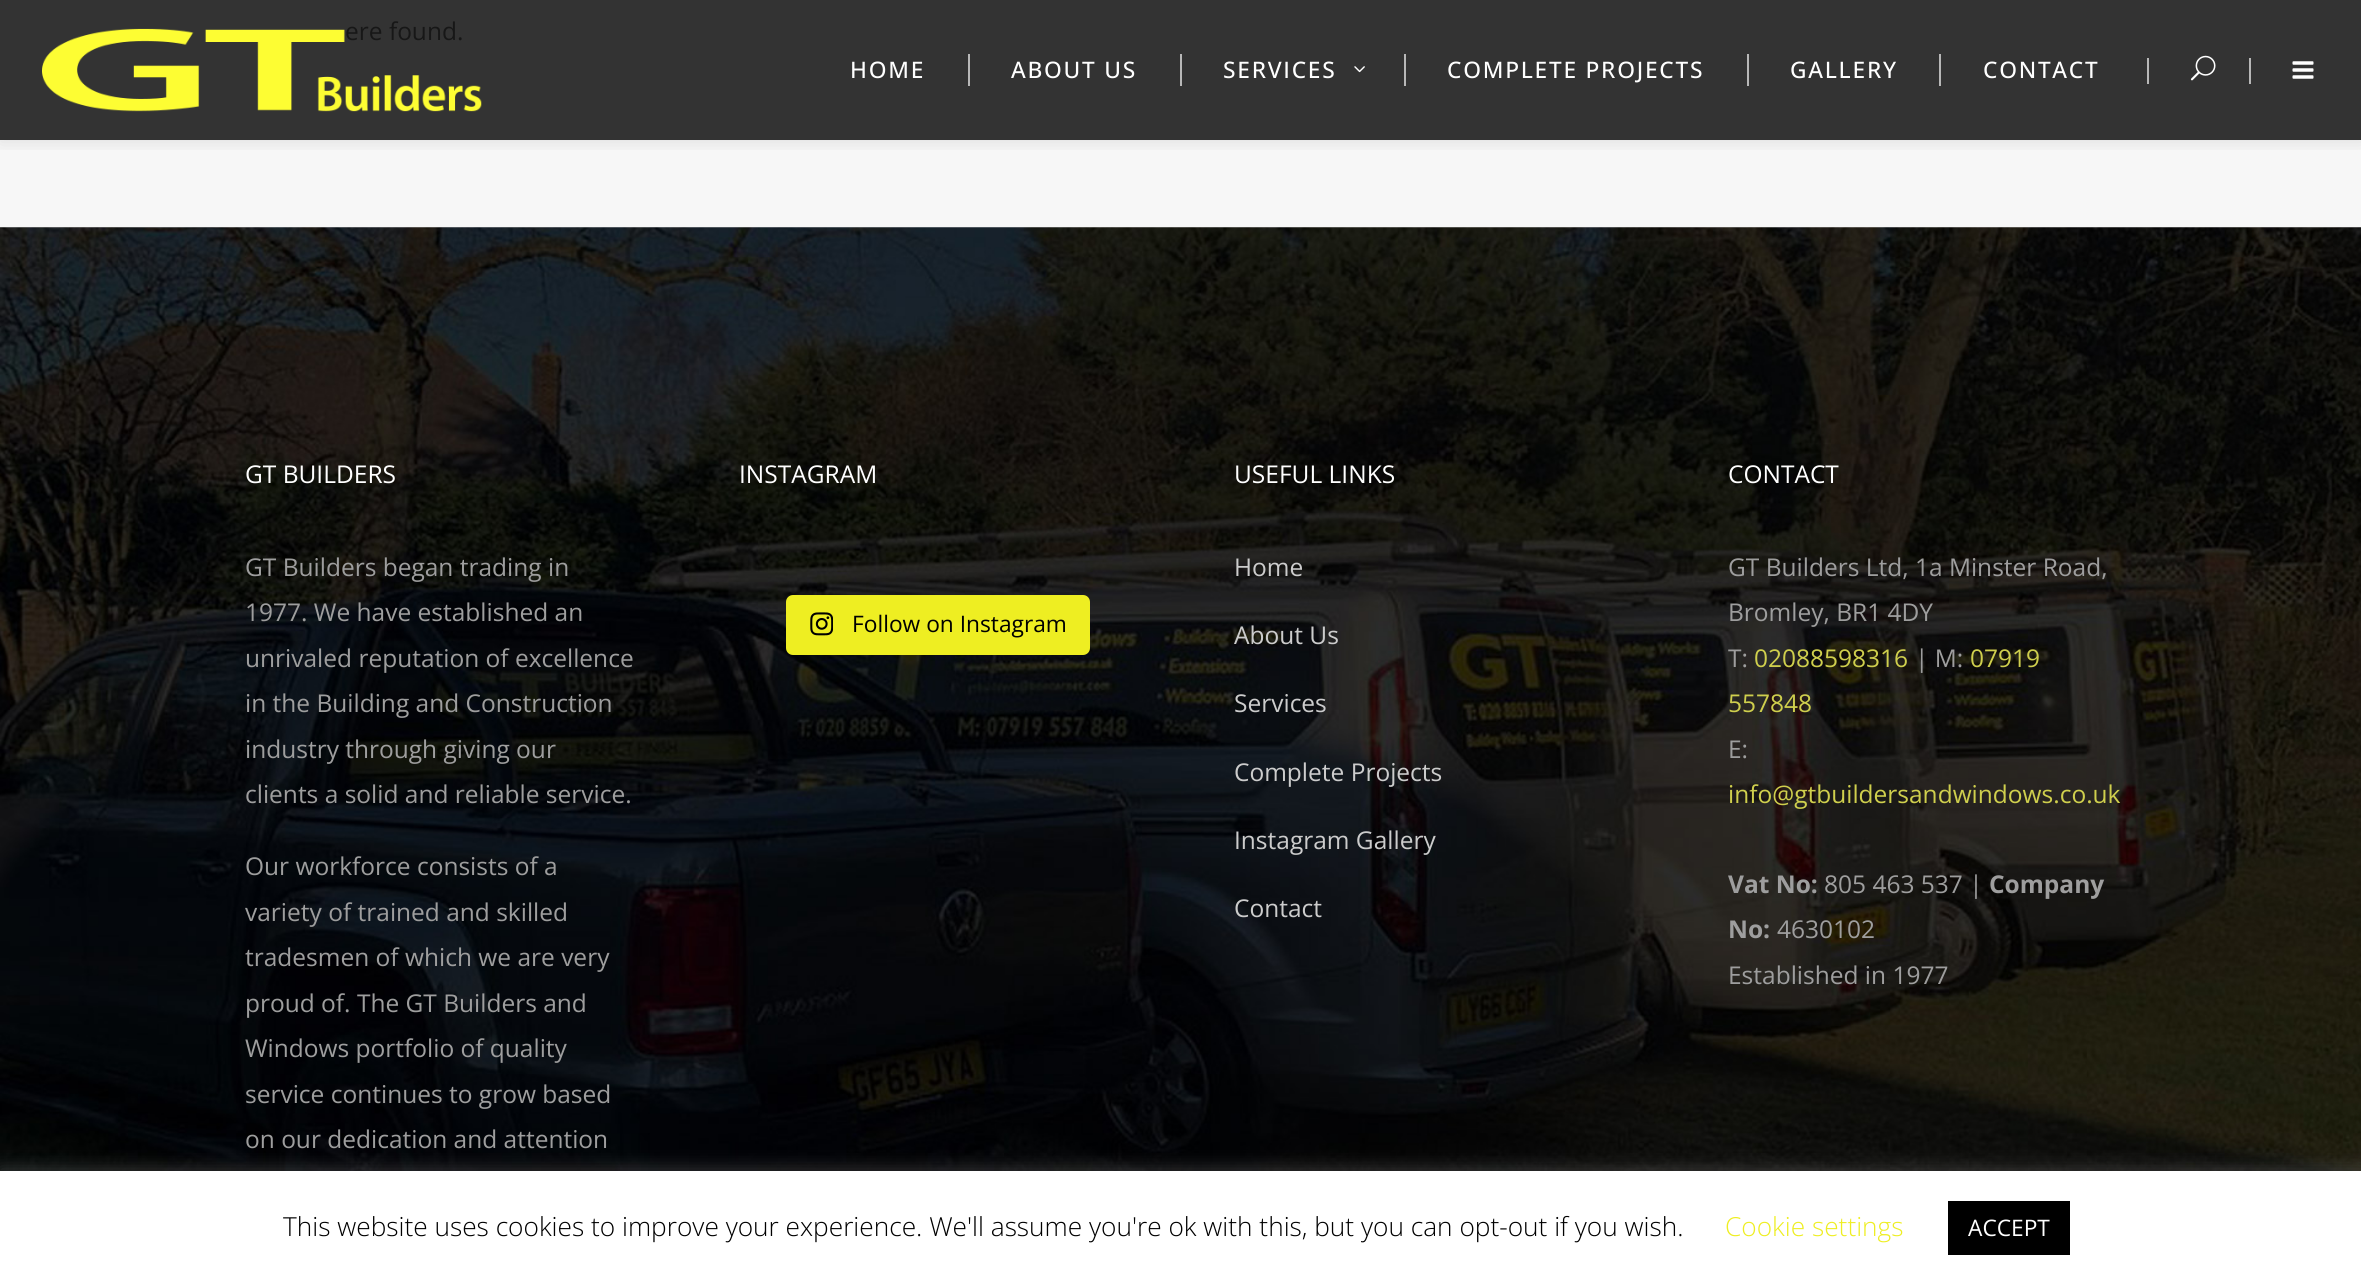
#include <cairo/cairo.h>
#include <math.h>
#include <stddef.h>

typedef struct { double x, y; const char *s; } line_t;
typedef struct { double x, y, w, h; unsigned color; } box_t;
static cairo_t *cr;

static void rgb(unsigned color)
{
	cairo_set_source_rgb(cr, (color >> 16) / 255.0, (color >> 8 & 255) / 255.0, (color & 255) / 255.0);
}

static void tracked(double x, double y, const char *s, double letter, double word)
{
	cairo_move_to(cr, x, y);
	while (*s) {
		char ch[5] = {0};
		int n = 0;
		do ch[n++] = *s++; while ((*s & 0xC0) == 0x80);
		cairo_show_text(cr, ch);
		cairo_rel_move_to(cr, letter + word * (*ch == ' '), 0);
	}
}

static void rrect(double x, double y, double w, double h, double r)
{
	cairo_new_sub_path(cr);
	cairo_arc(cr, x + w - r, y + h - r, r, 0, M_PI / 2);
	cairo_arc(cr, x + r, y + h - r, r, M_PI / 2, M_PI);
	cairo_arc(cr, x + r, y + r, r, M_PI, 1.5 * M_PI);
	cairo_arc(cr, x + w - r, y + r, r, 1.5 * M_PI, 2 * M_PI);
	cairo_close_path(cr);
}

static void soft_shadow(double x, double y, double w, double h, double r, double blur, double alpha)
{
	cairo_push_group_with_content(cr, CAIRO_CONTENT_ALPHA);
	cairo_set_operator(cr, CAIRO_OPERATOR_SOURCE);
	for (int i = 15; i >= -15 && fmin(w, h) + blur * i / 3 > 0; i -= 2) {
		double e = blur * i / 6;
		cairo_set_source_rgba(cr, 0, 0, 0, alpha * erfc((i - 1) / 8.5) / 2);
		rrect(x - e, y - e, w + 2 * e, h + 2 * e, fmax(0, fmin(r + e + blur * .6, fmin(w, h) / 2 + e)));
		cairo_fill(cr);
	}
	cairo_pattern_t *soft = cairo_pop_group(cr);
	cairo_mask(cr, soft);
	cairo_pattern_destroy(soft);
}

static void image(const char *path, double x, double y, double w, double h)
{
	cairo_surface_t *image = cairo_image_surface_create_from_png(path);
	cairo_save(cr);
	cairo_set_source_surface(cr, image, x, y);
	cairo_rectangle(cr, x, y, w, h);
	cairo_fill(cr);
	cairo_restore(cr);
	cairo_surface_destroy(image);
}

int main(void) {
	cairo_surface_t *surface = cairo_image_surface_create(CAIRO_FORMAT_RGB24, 2361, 1284);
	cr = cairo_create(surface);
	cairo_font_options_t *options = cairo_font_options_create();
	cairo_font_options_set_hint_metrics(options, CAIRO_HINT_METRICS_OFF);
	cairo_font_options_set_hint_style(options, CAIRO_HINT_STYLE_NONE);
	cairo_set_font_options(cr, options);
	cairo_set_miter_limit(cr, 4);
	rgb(0x333333);
	cairo_paint(cr);
	rgb(0xf7f7f7);
	cairo_rectangle(cr, 0, 140, 2361, 88);
	cairo_fill(cr);
	cairo_save(cr);
	cairo_rectangle(cr, 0, 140, 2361, 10);
	cairo_clip(cr);
	rgb(0x000000);
	soft_shadow(0, 2, 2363, 140, 0, 9, 0.1);
	cairo_restore(cr);
	rgb(0xb8b8b8);
	cairo_rectangle(cr, 968, 54, 2, 32);
	cairo_fill(cr);
	cairo_rectangle(cr, 1180, 54, 2, 32);
	cairo_fill(cr);
	image("img/2.png", 1354, 66, 11, 7);
	{
		static const box_t items[] = {
			{1404, 54, 2, 32, 0xb8b8b8},
			{1747, 54, 2, 32, 0xb8b8b8},
			{1939, 54, 2, 32, 0xb8b8b8},
			{2147, 58, 2, 26, 0xb8b8b8},
		};
		for (size_t i = 0; i < sizeof items / sizeof *items; i++) {
			rgb(items[i].color);
			cairo_rectangle(cr, items[i].x, items[i].y, items[i].w, items[i].h);
			cairo_fill(cr);
		}
	}
	image("img/3.png", 2190, 55, 26, 26);
	cairo_rectangle(cr, 2249, 58, 2, 26);
	cairo_fill(cr);
	image("img/4.png", 2292, 61, 22, 18);
	image("img/5.png", 0, 227, 2361, 944);
	rgb(0xeeee22);
	rrect(786, 595, 304, 60, 7);
	cairo_fill(cr);
	image("img/6.png", 810, 612, 23, 24);
	rgb(0xacabab);
	soft_shadow(0, 1169, 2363, 114, 0, 9, 0.3);
	rgb(0xffffff);
	cairo_rectangle(cr, 0, 1171, 2361, 113);
	cairo_fill(cr);
	rgb(0x000000);
	cairo_rectangle(cr, 1948, 1201, 122, 54);
	cairo_fill(cr);
	cairo_select_font_face(cr, "Open Sans", CAIRO_FONT_SLANT_NORMAL, CAIRO_FONT_WEIGHT_NORMAL);
	cairo_set_font_size(cr, 24.5);
	rgb(0x171717);
	cairo_move_to(cr, 345, 40);
	cairo_show_text(cr, "ere found.");
	image("img/1.png", 42, 28, 440, 84);
	cairo_select_font_face(cr, "Open Sans Medium", CAIRO_FONT_SLANT_NORMAL, CAIRO_FONT_WEIGHT_NORMAL);
	cairo_set_font_size(cr, 22.75);
	rgb(0xffffff);
	{
		static const line_t items[] = {
			{850, 78, "HOME"},
			{1011, 78, "ABOUT US"},
			{1223, 78, "SERVICES"},
			{1447, 78, "COMPLETE PROJECTS"},
			{1790, 78, "GALLERY"},
			{1983, 78, "CONTACT"},
		};
		for (size_t i = 0; i < sizeof items / sizeof *items; i++) {
			tracked(items[i].x, items[i].y, items[i].s, 1.75, 0);
		}
	}
	cairo_select_font_face(cr, "Open Sans", CAIRO_FONT_SLANT_NORMAL, CAIRO_FONT_WEIGHT_NORMAL);
	cairo_set_font_size(cr, 24.5);
	cairo_move_to(cr, 245, 483);
	cairo_show_text(cr, "GT BUILDERS");
	rgb(0x9e9e9e);
	{
		static const line_t items[] = {
			{245, 576, "GT Builders began trading in"},
			{245, 621, "1977. We have established an"},
			{245, 667, "unrivaled reputation of excellence"},
			{245, 712, "in the Building and Construction"},
			{245, 758, "industry through giving our"},
			{245, 803, "clients a solid and reliable service."},
			{245, 875, "Our workforce consists of a"},
			{245, 921, "variety of trained and skilled"},
			{245, 966, "tradesmen of which we are very"},
			{245, 1012, "proud of. The GT Builders and"},
			{245, 1057, "Windows portfolio of quality"},
			{245, 1103, "service continues to grow based"},
			{245, 1148, "on our dedication and attention"},
		};
		for (size_t i = 0; i < sizeof items / sizeof *items; i++) {
			cairo_move_to(cr, items[i].x, items[i].y);
			cairo_show_text(cr, items[i].s);
		}
	}
	rgb(0xffffff);
	cairo_move_to(cr, 739, 483);
	cairo_show_text(cr, "INSTAGRAM");
	cairo_set_font_size(cr, 22.75);
	rgb(0x000000);
	cairo_move_to(cr, 852, 632);
	cairo_show_text(cr, "Follow on Instagram");
	cairo_set_font_size(cr, 24.5);
	rgb(0xffffff);
	cairo_move_to(cr, 1234, 483);
	cairo_show_text(cr, "USEFUL LINKS");
	rgb(0xcccccc);
	{
		static const line_t items[] = {
			{1234, 576, "Home"},
			{1234, 644, "About Us"},
			{1234, 712, "Services"},
			{1234, 781, "Complete Projects"},
			{1234, 849, "Instagram Gallery"},
			{1234, 917, "Contact"},
		};
		for (size_t i = 0; i < sizeof items / sizeof *items; i++) {
			cairo_move_to(cr, items[i].x, items[i].y);
			cairo_show_text(cr, items[i].s);
		}
	}
	rgb(0xffffff);
	cairo_move_to(cr, 1728, 483);
	cairo_show_text(cr, "CONTACT");
	rgb(0x9e9e9e);
	{
		static const line_t items[] = {
			{1728, 576, "GT Builders Ltd, 1a Minster Road,"},
			{1728, 621, "Bromley, BR1 4DY"},
			{1728, 667, "T:"},
		};
		for (size_t i = 0; i < sizeof items / sizeof *items; i++) {
			cairo_move_to(cr, items[i].x, items[i].y);
			cairo_show_text(cr, items[i].s);
		}
	}
	rgb(0xcfcf4d);
	cairo_move_to(cr, 1754, 667);
	cairo_show_text(cr, "02088598316");
	rgb(0x9e9e9e);
	cairo_move_to(cr, 1915, 667);
	cairo_show_text(cr, "| M:");
	rgb(0xcfcf4d);
	cairo_move_to(cr, 1970, 667);
	cairo_show_text(cr, "07919");
	cairo_move_to(cr, 1728, 712);
	cairo_show_text(cr, "557848");
	rgb(0x9e9e9e);
	cairo_move_to(cr, 1728, 758);
	cairo_show_text(cr, "E:");
	rgb(0xcfcf4d);
	cairo_move_to(cr, 1728, 803);
	cairo_show_text(cr, "info@gtbuildersandwindows.co.uk");
	cairo_select_font_face(cr, "Open Sans", CAIRO_FONT_SLANT_NORMAL, CAIRO_FONT_WEIGHT_BOLD);
	rgb(0x9e9e9e);
	cairo_move_to(cr, 1728, 893);
	cairo_show_text(cr, "Vat No:");
	cairo_select_font_face(cr, "Open Sans", CAIRO_FONT_SLANT_NORMAL, CAIRO_FONT_WEIGHT_NORMAL);
	cairo_move_to(cr, 1824, 893);
	cairo_show_text(cr, "805 463 537 |");
	cairo_select_font_face(cr, "Open Sans", CAIRO_FONT_SLANT_NORMAL, CAIRO_FONT_WEIGHT_BOLD);
	cairo_move_to(cr, 1989, 893);
	cairo_show_text(cr, "Company");
	cairo_move_to(cr, 1728, 938);
	cairo_show_text(cr, "No:");
	cairo_select_font_face(cr, "Open Sans", CAIRO_FONT_SLANT_NORMAL, CAIRO_FONT_WEIGHT_NORMAL);
	cairo_move_to(cr, 1777, 938);
	cairo_show_text(cr, "4630102");
	cairo_move_to(cr, 1728, 984);
	cairo_show_text(cr, "Established in 1977");
	cairo_select_font_face(cr, "Open Sans Light", CAIRO_FONT_SLANT_NORMAL, CAIRO_FONT_WEIGHT_NORMAL);
	cairo_set_font_size(cr, 26.25);
	rgb(0x000000);
	cairo_move_to(cr, 283, 1236);
	cairo_show_text(cr, "This website uses cookies to improve your experience. We'll assume you're ok with this, but you can opt-out if you wish.");
	rgb(0xeeee22);
	cairo_move_to(cr, 1725, 1236);
	cairo_show_text(cr, "Cookie settings");
	cairo_select_font_face(cr, "Open Sans", CAIRO_FONT_SLANT_NORMAL, CAIRO_FONT_WEIGHT_NORMAL);
	cairo_set_font_size(cr, 22.75);
	rgb(0xffffff);
	cairo_move_to(cr, 1968, 1236);
	cairo_show_text(cr, "ACCEPT");
	cairo_surface_write_to_png(surface, "page.png");
	cairo_font_options_destroy(options);
	cairo_destroy(cr);
	cairo_surface_destroy(surface);
	return 0;
}
